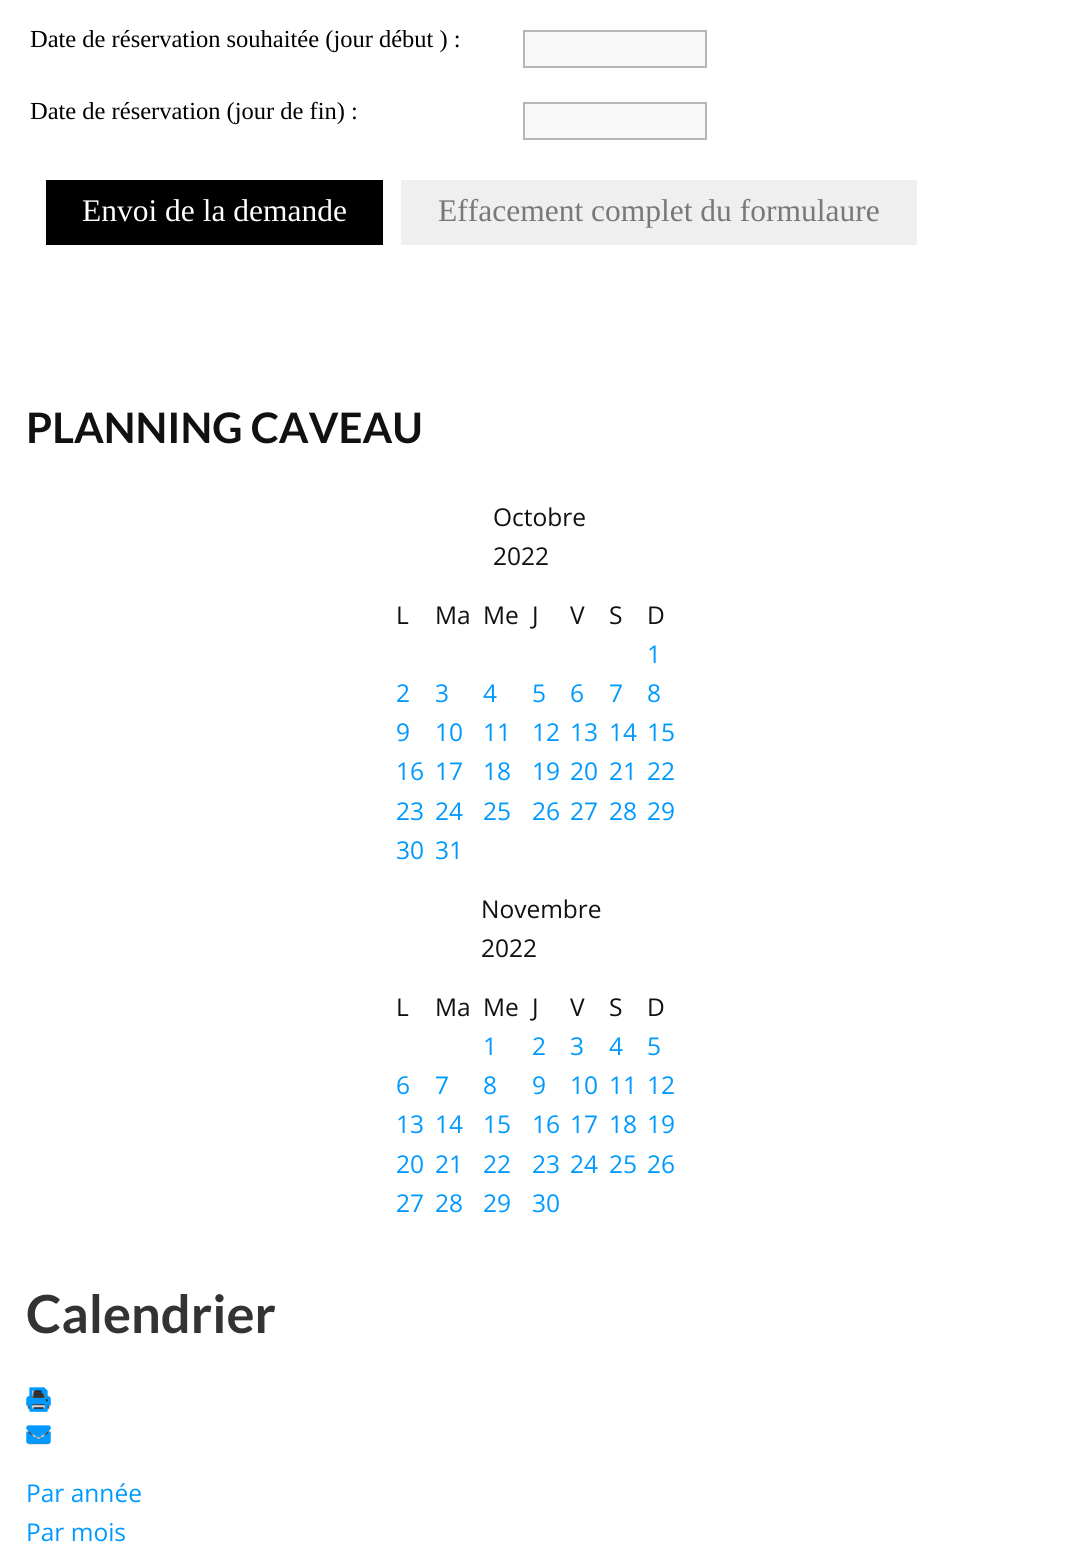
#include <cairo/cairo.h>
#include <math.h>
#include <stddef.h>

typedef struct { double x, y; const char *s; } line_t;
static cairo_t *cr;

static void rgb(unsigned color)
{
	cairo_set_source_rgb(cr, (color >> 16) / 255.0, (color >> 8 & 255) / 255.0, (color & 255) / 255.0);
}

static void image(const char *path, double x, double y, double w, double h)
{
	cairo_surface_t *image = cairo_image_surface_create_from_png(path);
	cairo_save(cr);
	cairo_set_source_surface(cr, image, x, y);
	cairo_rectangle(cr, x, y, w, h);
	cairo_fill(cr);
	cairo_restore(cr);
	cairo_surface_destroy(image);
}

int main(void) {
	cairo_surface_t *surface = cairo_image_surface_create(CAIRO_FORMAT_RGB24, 1081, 1560);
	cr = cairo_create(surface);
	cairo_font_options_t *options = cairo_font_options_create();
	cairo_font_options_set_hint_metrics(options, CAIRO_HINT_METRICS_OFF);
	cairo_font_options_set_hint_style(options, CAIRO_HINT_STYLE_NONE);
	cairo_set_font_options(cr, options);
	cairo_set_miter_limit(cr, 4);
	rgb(0xffffff);
	cairo_paint(cr);
	rgb(0xf8f8f8);
	cairo_rectangle(cr, 524, 31, 182, 36);
	cairo_fill_preserve(cr);
	rgb(0xb7b7b7);
	cairo_stroke(cr);
	rgb(0xf8f8f8);
	cairo_rectangle(cr, 524, 103, 182, 36);
	cairo_fill_preserve(cr);
	rgb(0xb7b7b7);
	cairo_stroke(cr);
	rgb(0x000000);
	cairo_rectangle(cr, 46, 180, 337, 65);
	cairo_fill(cr);
	rgb(0xf0efef);
	cairo_rectangle(cr, 401, 180, 516, 65);
	cairo_fill(cr);
	image("img/1.png", 27, 1390, 23, 21);
	image("img/2.png", 26, 1387, 25, 25);
	image("img/3.png", 27, 1425, 23, 20);
	image("img/4.png", 26, 1425, 25, 19);
	cairo_select_font_face(cr, "Liberation Serif", CAIRO_FONT_SLANT_NORMAL, CAIRO_FONT_WEIGHT_NORMAL);
	cairo_set_font_size(cr, 24.5);
	rgb(0x000000);
	cairo_move_to(cr, 30, 47);
	cairo_show_text(cr, "Date de réservation souhaitée (jour début ) :");
	cairo_move_to(cr, 30, 119);
	cairo_show_text(cr, "Date de réservation (jour de fin) :");
	cairo_set_font_size(cr, 31.5);
	rgb(0xffffff);
	cairo_move_to(cr, 82, 221);
	cairo_show_text(cr, "Envoi de la demande");
	rgb(0x787878);
	cairo_move_to(cr, 438, 221);
	cairo_show_text(cr, "Effacement complet du formulaure");
	cairo_select_font_face(cr, "Lato", CAIRO_FONT_SLANT_NORMAL, CAIRO_FONT_WEIGHT_BOLD);
	cairo_set_font_size(cr, 42);
	rgb(0x111111);
	cairo_move_to(cr, 26, 443);
	cairo_show_text(cr, "PLANNING CAVEAU");
	cairo_select_font_face(cr, "Open Sans", CAIRO_FONT_SLANT_NORMAL, CAIRO_FONT_WEIGHT_NORMAL);
	cairo_set_font_size(cr, 24.5);
	{
		static const line_t items[] = {
			{493, 526, "Octobre"},
			{493, 565, "2022"},
			{396, 624, "L"},
			{435, 624, "Ma"},
			{483, 624, "Me"},
			{532, 624, "J"},
			{570, 624, "V"},
			{609, 624, "S"},
			{647, 624, "D"},
		};
		for (size_t i = 0; i < sizeof items / sizeof *items; i++) {
			cairo_move_to(cr, items[i].x, items[i].y);
			cairo_show_text(cr, items[i].s);
		}
	}
	rgb(0x0099ff);
	{
		static const line_t items[] = {
			{647, 663, "1"},
			{396, 702, "2"},
			{435, 702, "3"},
			{483, 702, "4"},
			{532, 702, "5"},
			{570, 702, "6"},
			{609, 702, "7"},
			{647, 702, "8"},
			{396, 741, "9"},
			{435, 741, "10"},
			{483, 741, "11"},
			{532, 741, "12"},
			{570, 741, "13"},
			{609, 741, "14"},
			{647, 741, "15"},
			{396, 780, "16"},
			{435, 780, "17"},
			{483, 780, "18"},
			{532, 780, "19"},
			{570, 780, "20"},
			{609, 780, "21"},
			{647, 780, "22"},
			{396, 820, "23"},
			{435, 820, "24"},
			{483, 820, "25"},
			{532, 820, "26"},
			{570, 820, "27"},
			{609, 820, "28"},
			{647, 820, "29"},
			{396, 859, "30"},
			{435, 859, "31"},
		};
		for (size_t i = 0; i < sizeof items / sizeof *items; i++) {
			cairo_move_to(cr, items[i].x, items[i].y);
			cairo_show_text(cr, items[i].s);
		}
	}
	rgb(0x111111);
	{
		static const line_t items[] = {
			{481, 918, "Novembre"},
			{481, 957, "2022"},
			{396, 1016, "L"},
			{435, 1016, "Ma"},
			{483, 1016, "Me"},
			{532, 1016, "J"},
			{570, 1016, "V"},
			{609, 1016, "S"},
			{647, 1016, "D"},
		};
		for (size_t i = 0; i < sizeof items / sizeof *items; i++) {
			cairo_move_to(cr, items[i].x, items[i].y);
			cairo_show_text(cr, items[i].s);
		}
	}
	rgb(0x0099ff);
	{
		static const line_t items[] = {
			{483, 1055, "1"},
			{532, 1055, "2"},
			{570, 1055, "3"},
			{609, 1055, "4"},
			{647, 1055, "5"},
			{396, 1094, "6"},
			{435, 1094, "7"},
			{483, 1094, "8"},
			{532, 1094, "9"},
			{570, 1094, "10"},
			{609, 1094, "11"},
			{647, 1094, "12"},
			{396, 1133, "13"},
			{435, 1133, "14"},
			{483, 1133, "15"},
			{532, 1133, "16"},
			{570, 1133, "17"},
			{609, 1133, "18"},
			{647, 1133, "19"},
			{396, 1173, "20"},
			{435, 1173, "21"},
			{483, 1173, "22"},
			{532, 1173, "23"},
			{570, 1173, "24"},
			{609, 1173, "25"},
			{647, 1173, "26"},
			{396, 1212, "27"},
			{435, 1212, "28"},
			{483, 1212, "29"},
			{532, 1212, "30"},
		};
		for (size_t i = 0; i < sizeof items / sizeof *items; i++) {
			cairo_move_to(cr, items[i].x, items[i].y);
			cairo_show_text(cr, items[i].s);
		}
	}
	cairo_select_font_face(cr, "Lato", CAIRO_FONT_SLANT_NORMAL, CAIRO_FONT_WEIGHT_BOLD);
	cairo_set_font_size(cr, 52.5);
	rgb(0x333333);
	cairo_move_to(cr, 26, 1333);
	cairo_show_text(cr, "Calendrier");
	cairo_select_font_face(cr, "Open Sans", CAIRO_FONT_SLANT_NORMAL, CAIRO_FONT_WEIGHT_NORMAL);
	cairo_set_font_size(cr, 24.5);
	rgb(0x0099ff);
	cairo_move_to(cr, 26, 1502);
	cairo_show_text(cr, "Par année");
	cairo_move_to(cr, 26, 1541);
	cairo_show_text(cr, "Par mois");
	cairo_surface_write_to_png(surface, "page.png");
	cairo_font_options_destroy(options);
	cairo_destroy(cr);
	cairo_surface_destroy(surface);
	return 0;
}
